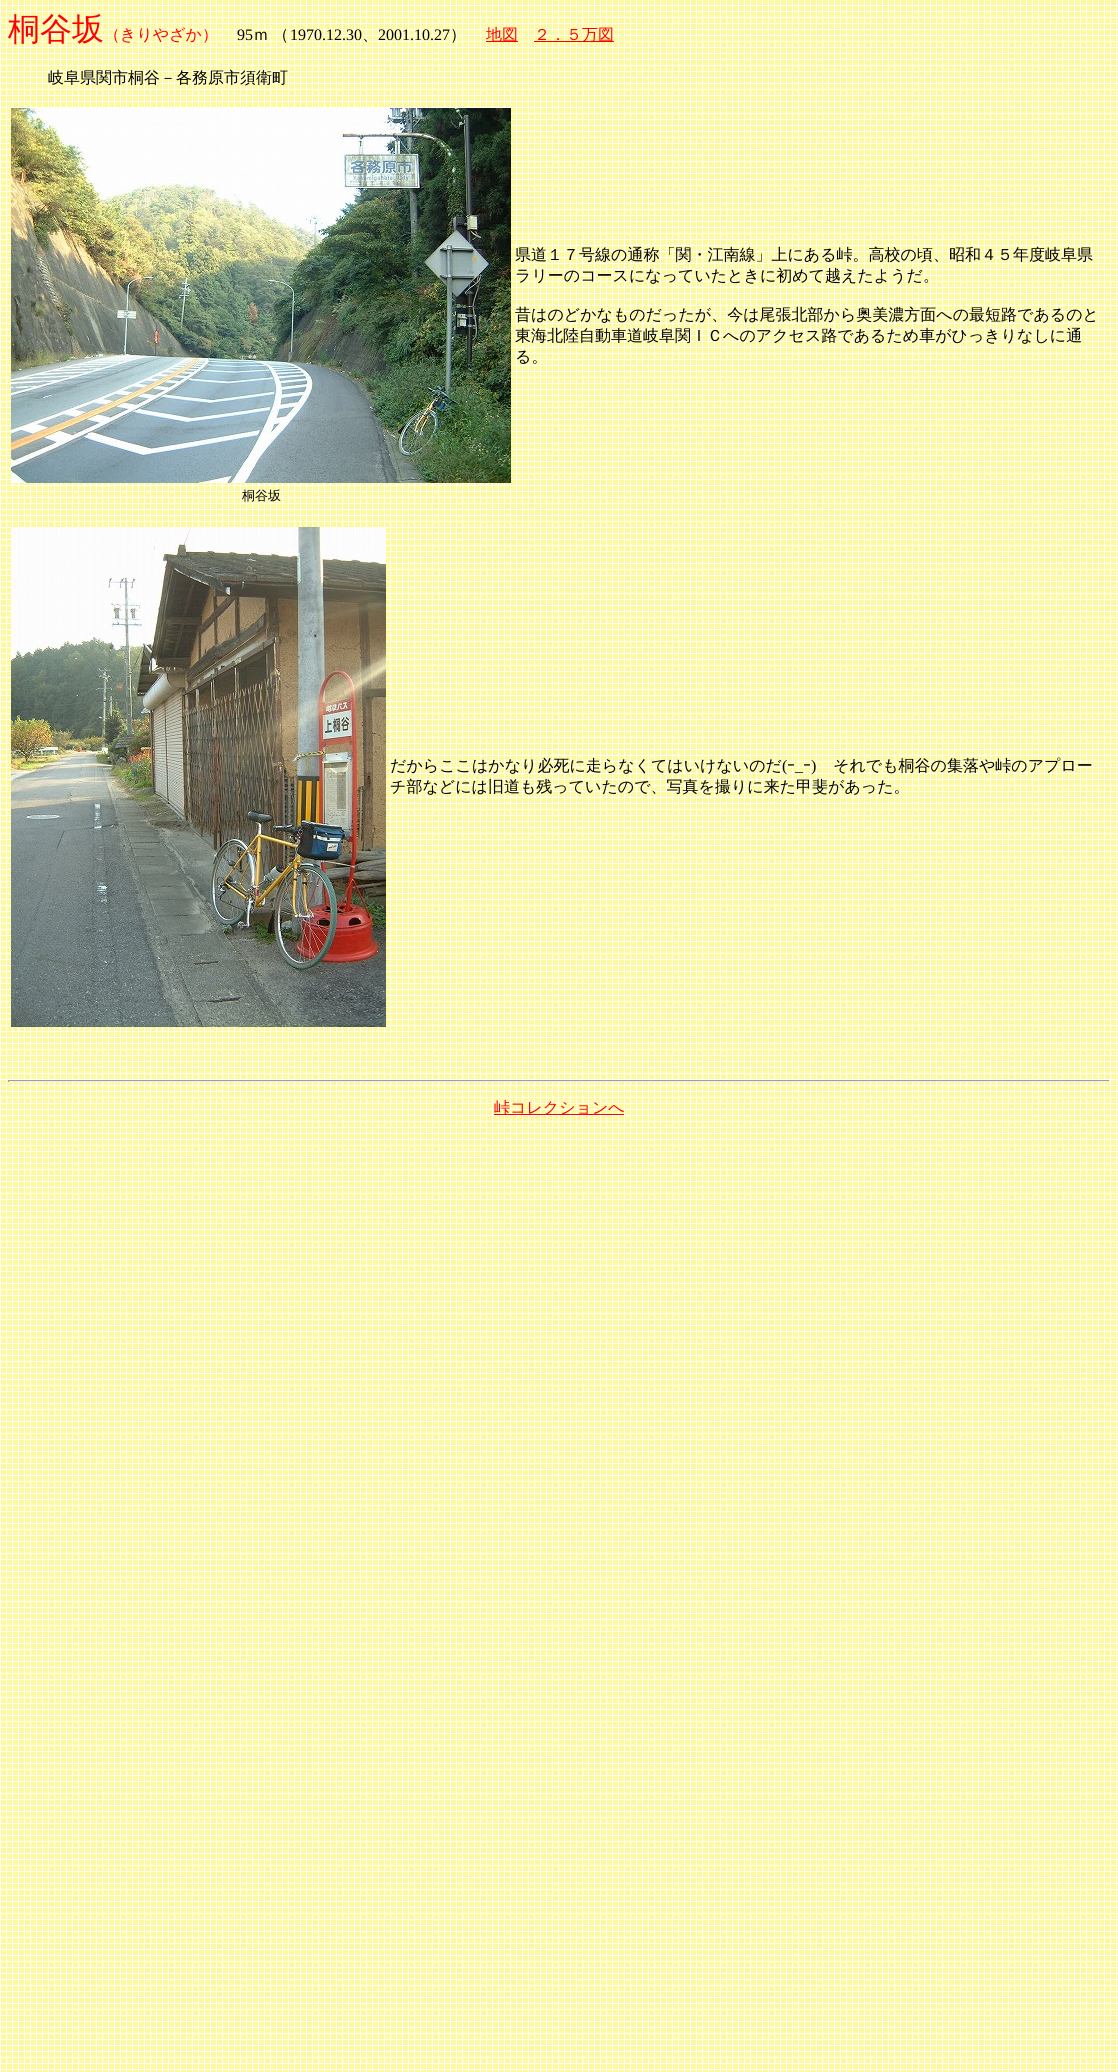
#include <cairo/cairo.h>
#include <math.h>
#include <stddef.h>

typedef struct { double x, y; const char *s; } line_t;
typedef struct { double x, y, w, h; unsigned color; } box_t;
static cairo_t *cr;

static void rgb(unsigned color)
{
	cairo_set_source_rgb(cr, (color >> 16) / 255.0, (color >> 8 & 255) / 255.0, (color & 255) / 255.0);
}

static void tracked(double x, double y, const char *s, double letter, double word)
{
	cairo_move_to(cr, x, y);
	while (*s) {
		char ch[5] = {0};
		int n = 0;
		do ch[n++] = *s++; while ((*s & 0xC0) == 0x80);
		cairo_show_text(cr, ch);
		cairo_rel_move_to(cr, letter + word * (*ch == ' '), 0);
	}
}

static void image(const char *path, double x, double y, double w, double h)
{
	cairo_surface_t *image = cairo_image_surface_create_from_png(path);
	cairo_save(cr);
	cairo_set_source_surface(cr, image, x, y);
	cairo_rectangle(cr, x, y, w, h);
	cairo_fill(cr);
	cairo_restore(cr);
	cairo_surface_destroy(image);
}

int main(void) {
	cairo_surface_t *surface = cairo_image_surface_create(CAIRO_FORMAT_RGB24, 1118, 2072);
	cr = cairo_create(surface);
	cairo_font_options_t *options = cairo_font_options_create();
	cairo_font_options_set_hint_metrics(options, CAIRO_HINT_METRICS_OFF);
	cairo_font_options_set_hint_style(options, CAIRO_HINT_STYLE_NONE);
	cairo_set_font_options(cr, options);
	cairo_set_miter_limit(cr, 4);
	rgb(0xffffff);
	cairo_paint(cr);
	image("img/1.png", 1, 0, 1117, 2072);
	rgb(0xff0000);
	cairo_rectangle(cr, 486, 41, 32, 1);
	cairo_fill(cr);
	cairo_rectangle(cr, 534, 41, 80, 1);
	cairo_fill(cr);
	image("img/2.png", 11, 108, 500, 375);
	image("img/3.png", 11, 527, 375, 500);
	{
		static const box_t items[] = {
			{8, 1080, 1102, 1, 0x9f9f9f},
			{1109, 1080, 1, 2, 0xeeeeee},
			{8, 1081, 1102, 1, 0xeeeeee},
			{8, 1080, 1, 2, 0x9f9f9f},
			{494, 1114, 130, 1, 0xff0000},
		};
		for (size_t i = 0; i < sizeof items / sizeof *items; i++) {
			rgb(items[i].color);
			cairo_rectangle(cr, items[i].x, items[i].y, items[i].w, items[i].h);
			cairo_fill(cr);
		}
	}
	cairo_select_font_face(cr, "WenQuanYi Zen Hei Medium", CAIRO_FONT_SLANT_NORMAL, CAIRO_FONT_WEIGHT_NORMAL);
	cairo_set_font_size(cr, 32);
	cairo_move_to(cr, 8, 40);
	cairo_show_text(cr, "桐谷坂");
	cairo_set_font_size(cr, 16);
	cairo_move_to(cr, 104, 40);
	cairo_show_text(cr, "（きりやざか）");
	cairo_select_font_face(cr, "Liberation Serif", CAIRO_FONT_SLANT_NORMAL, CAIRO_FONT_WEIGHT_NORMAL);
	rgb(0x000000);
	cairo_move_to(cr, 237, 40);
	cairo_show_text(cr, "95");
	cairo_select_font_face(cr, "WenQuanYi Zen Hei Medium", CAIRO_FONT_SLANT_NORMAL, CAIRO_FONT_WEIGHT_NORMAL);
	tracked(253, 40, "ｍ （", 0, -1);
	cairo_select_font_face(cr, "Liberation Serif", CAIRO_FONT_SLANT_NORMAL, CAIRO_FONT_WEIGHT_NORMAL);
	cairo_move_to(cr, 290, 40);
	cairo_show_text(cr, "1970.12.30");
	cairo_select_font_face(cr, "WenQuanYi Zen Hei Medium", CAIRO_FONT_SLANT_NORMAL, CAIRO_FONT_WEIGHT_NORMAL);
	cairo_move_to(cr, 362, 40);
	cairo_show_text(cr, "、");
	cairo_select_font_face(cr, "Liberation Serif", CAIRO_FONT_SLANT_NORMAL, CAIRO_FONT_WEIGHT_NORMAL);
	cairo_move_to(cr, 378, 40);
	cairo_show_text(cr, "2001.10.27");
	cairo_select_font_face(cr, "WenQuanYi Zen Hei Medium", CAIRO_FONT_SLANT_NORMAL, CAIRO_FONT_WEIGHT_NORMAL);
	cairo_move_to(cr, 450, 40);
	cairo_show_text(cr, "）");
	rgb(0xff0000);
	cairo_move_to(cr, 486, 40);
	cairo_show_text(cr, "地図");
	cairo_move_to(cr, 534, 40);
	cairo_show_text(cr, "２．５万図");
	rgb(0x000000);
	{
		static const line_t items[] = {
			{48, 83, "岐阜県関市桐谷－各務原市須衛町"},
			{515, 260, "県道１７号線の通称「関・江南線」上にある峠。高校の頃、昭和４５年度岐阜県"},
			{515, 281, "ラリーのコースになっていたときに初めて越えたようだ。"},
			{515, 320, "昔はのどかなものだったが、今は尾張北部から奥美濃方面への最短路であるのと"},
			{515, 341, "東海北陸自動車道岐阜関ＩＣへのアクセス路であるため車がひっきりなしに通"},
			{515, 362, "る。"},
		};
		for (size_t i = 0; i < sizeof items / sizeof *items; i++) {
			cairo_move_to(cr, items[i].x, items[i].y);
			cairo_show_text(cr, items[i].s);
		}
	}
	cairo_set_font_size(cr, 13);
	cairo_move_to(cr, 242, 500);
	cairo_show_text(cr, "桐谷坂");
	cairo_set_font_size(cr, 16);
	cairo_move_to(cr, 390, 771);
	cairo_show_text(cr, "だからここはかなり必死に走らなくてはいけないのだ");
	cairo_select_font_face(cr, "Liberation Serif", CAIRO_FONT_SLANT_NORMAL, CAIRO_FONT_WEIGHT_NORMAL);
	cairo_move_to(cr, 782, 771);
	cairo_show_text(cr, "(");
	cairo_select_font_face(cr, "IPAGothic", CAIRO_FONT_SLANT_NORMAL, CAIRO_FONT_WEIGHT_NORMAL);
	cairo_move_to(cr, 787, 771);
	cairo_show_text(cr, "ｰ ｰ");
	cairo_select_font_face(cr, "Liberation Serif", CAIRO_FONT_SLANT_NORMAL, CAIRO_FONT_WEIGHT_NORMAL);
	cairo_move_to(cr, 811, 771);
	cairo_show_text(cr, ")");
	cairo_select_font_face(cr, "WenQuanYi Zen Hei Medium", CAIRO_FONT_SLANT_NORMAL, CAIRO_FONT_WEIGHT_NORMAL);
	cairo_move_to(cr, 833, 771);
	cairo_show_text(cr, "それでも桐谷の集落や峠のアプロー");
	cairo_select_font_face(cr, "Liberation Serif", CAIRO_FONT_SLANT_NORMAL, CAIRO_FONT_WEIGHT_NORMAL);
	cairo_move_to(cr, 795, 771);
	cairo_show_text(cr, "_");
	cairo_select_font_face(cr, "WenQuanYi Zen Hei Medium", CAIRO_FONT_SLANT_NORMAL, CAIRO_FONT_WEIGHT_NORMAL);
	cairo_move_to(cr, 390, 792);
	cairo_show_text(cr, "チ部などには旧道も残っていたので、写真を撮りに来た甲斐があった。");
	rgb(0xff0000);
	cairo_move_to(cr, 494, 1113);
	cairo_show_text(cr, "峠コレクションへ");
	cairo_surface_write_to_png(surface, "page.png");
	cairo_font_options_destroy(options);
	cairo_destroy(cr);
	cairo_surface_destroy(surface);
	return 0;
}
